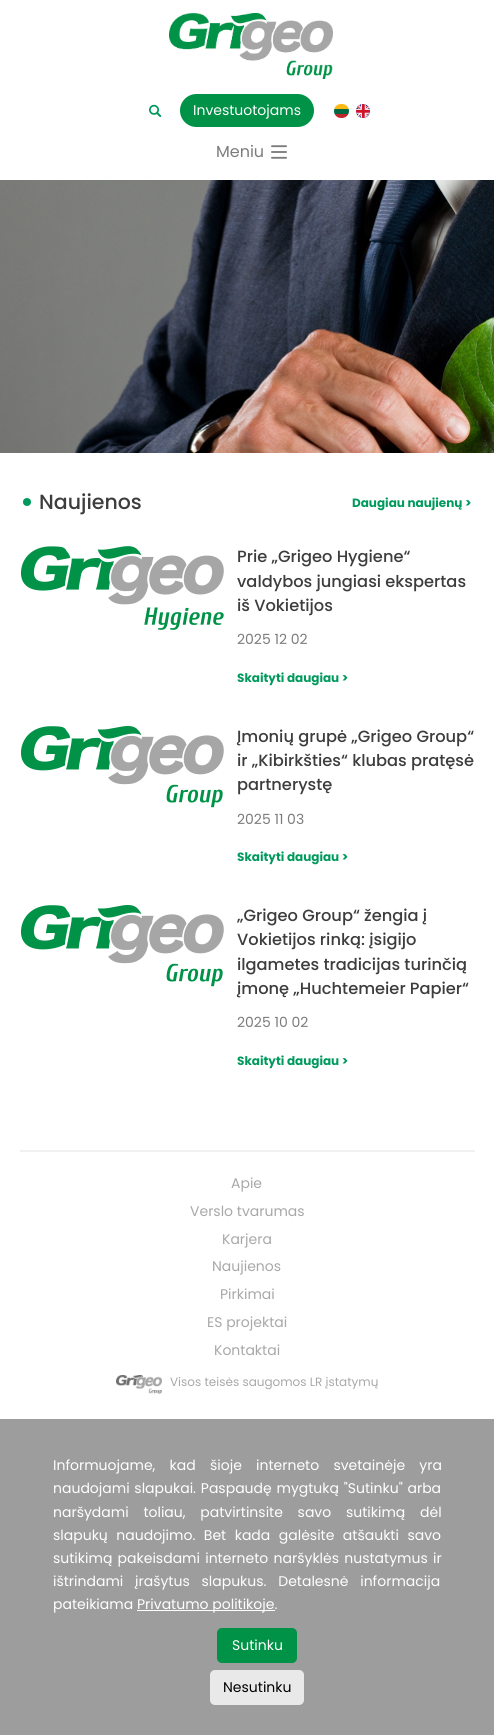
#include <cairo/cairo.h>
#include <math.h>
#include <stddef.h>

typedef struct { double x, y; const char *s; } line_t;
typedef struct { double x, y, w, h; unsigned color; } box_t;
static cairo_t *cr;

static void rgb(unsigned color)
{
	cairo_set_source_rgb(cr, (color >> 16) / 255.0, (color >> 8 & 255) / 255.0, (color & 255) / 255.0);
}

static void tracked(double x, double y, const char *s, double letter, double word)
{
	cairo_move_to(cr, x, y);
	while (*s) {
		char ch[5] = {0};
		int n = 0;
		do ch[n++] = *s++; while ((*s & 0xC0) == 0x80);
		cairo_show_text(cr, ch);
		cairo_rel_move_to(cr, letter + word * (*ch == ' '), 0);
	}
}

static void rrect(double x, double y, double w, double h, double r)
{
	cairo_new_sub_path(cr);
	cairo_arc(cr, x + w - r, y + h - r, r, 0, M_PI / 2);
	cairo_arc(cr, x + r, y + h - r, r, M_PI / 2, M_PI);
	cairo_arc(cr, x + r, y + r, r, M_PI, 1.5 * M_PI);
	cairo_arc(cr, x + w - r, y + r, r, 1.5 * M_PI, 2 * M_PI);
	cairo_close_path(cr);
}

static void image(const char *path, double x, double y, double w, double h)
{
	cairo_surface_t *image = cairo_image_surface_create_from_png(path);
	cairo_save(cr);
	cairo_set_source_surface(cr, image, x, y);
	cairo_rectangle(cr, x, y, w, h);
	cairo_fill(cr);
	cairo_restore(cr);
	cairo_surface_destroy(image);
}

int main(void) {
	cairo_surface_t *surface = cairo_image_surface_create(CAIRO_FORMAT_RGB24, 494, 1735);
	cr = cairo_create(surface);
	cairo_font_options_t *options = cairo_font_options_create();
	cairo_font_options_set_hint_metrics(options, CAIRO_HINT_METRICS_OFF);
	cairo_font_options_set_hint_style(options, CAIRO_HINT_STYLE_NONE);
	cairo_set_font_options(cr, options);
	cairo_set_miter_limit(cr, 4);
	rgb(0xffffff);
	cairo_paint(cr);
	image("img/1.png", 169, 13, 164, 66);
	image("img/2.png", 149, 104, 13, 13);
	rgb(0x009246);
	rrect(180, 94, 134, 33, 16.5);
	cairo_fill(cr);
	cairo_save(cr);
	rrect(334, 104, 15, 14, 7);
	cairo_clip(cr);
	{
		static const box_t items[] = {
			{334, 104, 15, 5, 0xfdb913},
			{334, 109, 15, 5, 0x006a44},
			{334, 114, 15, 4, 0xc1272d},
		};
		for (size_t i = 0; i < sizeof items / sizeof *items; i++) {
			rgb(items[i].color);
			cairo_rectangle(cr, items[i].x, items[i].y, items[i].w, items[i].h);
			cairo_fill(cr);
		}
	}
	cairo_restore(cr);
	image("img/3.png", 356, 104, 14, 14);
	image("img/4.png", 271, 145, 16, 14);
	image("img/5.png", 0, 180, 494, 273);
	rgb(0x009a5d);
	cairo_arc(cr, 27, 502, 4, 0, 2 * M_PI);
	cairo_fill(cr);
	image("img/6.png", 20, 546, 204, 84);
	image("img/7.png", 21, 726, 203, 82);
	image("img/7.png", 21, 905, 203, 82);
	rgb(0xf1f1f1);
	cairo_rectangle(cr, 20, 1150, 455, 2);
	cairo_fill(cr);
	image("img/8.png", 116, 1375, 46, 19);
	rgb(0x9d9d9d);
	cairo_rectangle(cr, 0, 1419, 494, 316);
	cairo_fill(cr);
	rgb(0xffffff);
	cairo_rectangle(cr, 137, 1610, 138, 1);
	cairo_fill(cr);
	rgb(0x009246);
	rrect(217, 1628, 80, 35, 5);
	cairo_fill(cr);
	rgb(0xe9e9e9);
	rrect(210, 1670, 94, 35, 5);
	cairo_fill(cr);
	cairo_select_font_face(cr, "Poppins", CAIRO_FONT_SLANT_NORMAL, CAIRO_FONT_WEIGHT_NORMAL);
	cairo_set_font_size(cr, 14);
	rgb(0xffffff);
	cairo_move_to(cr, 193, 115);
	cairo_show_text(cr, "Investuotojams");
	cairo_set_font_size(cr, 16);
	rgb(0x7c7c7c);
	cairo_move_to(cr, 216, 157);
	cairo_show_text(cr, "Meniu");
	cairo_select_font_face(cr, "Poppins Medium", CAIRO_FONT_SLANT_NORMAL, CAIRO_FONT_WEIGHT_NORMAL);
	cairo_set_font_size(cr, 20.5);
	rgb(0x3d3d3d);
	cairo_move_to(cr, 39, 509);
	cairo_show_text(cr, "Naujienos");
	cairo_select_font_face(cr, "Poppins", CAIRO_FONT_SLANT_NORMAL, CAIRO_FONT_WEIGHT_BOLD);
	cairo_set_font_size(cr, 12);
	rgb(0x009a5d);
	cairo_move_to(cr, 352, 507);
	cairo_show_text(cr, "Daugiau naujienų >");
	cairo_select_font_face(cr, "Poppins Medium", CAIRO_FONT_SLANT_NORMAL, CAIRO_FONT_WEIGHT_NORMAL);
	cairo_set_font_size(cr, 16.25);
	rgb(0x3d3d3d);
	{
		static const line_t items[] = {
			{237, 562, "Prie „Grigeo Hygiene“"},
			{237, 587, "valdybos jungiasi ekspertas"},
			{237, 611, "iš Vokietijos"},
		};
		for (size_t i = 0; i < sizeof items / sizeof *items; i++) {
			cairo_move_to(cr, items[i].x, items[i].y);
			cairo_show_text(cr, items[i].s);
		}
	}
	cairo_select_font_face(cr, "Poppins", CAIRO_FONT_SLANT_NORMAL, CAIRO_FONT_WEIGHT_NORMAL);
	cairo_set_font_size(cr, 14);
	rgb(0x7c7c7c);
	cairo_move_to(cr, 237, 644);
	cairo_show_text(cr, "2025 12 02");
	cairo_select_font_face(cr, "Poppins", CAIRO_FONT_SLANT_NORMAL, CAIRO_FONT_WEIGHT_BOLD);
	cairo_set_font_size(cr, 12);
	rgb(0x009a5d);
	cairo_move_to(cr, 237, 682);
	cairo_show_text(cr, "Skaityti daugiau >");
	cairo_select_font_face(cr, "Poppins Medium", CAIRO_FONT_SLANT_NORMAL, CAIRO_FONT_WEIGHT_NORMAL);
	cairo_set_font_size(cr, 16.25);
	rgb(0x3d3d3d);
	{
		static const line_t items[] = {
			{237, 742, "Įmonių grupė „Grigeo Group“"},
			{237, 766, "ir „Kibirkšties“ klubas pratęsė"},
			{237, 790, "partnerystę"},
		};
		for (size_t i = 0; i < sizeof items / sizeof *items; i++) {
			cairo_move_to(cr, items[i].x, items[i].y);
			cairo_show_text(cr, items[i].s);
		}
	}
	cairo_select_font_face(cr, "Poppins", CAIRO_FONT_SLANT_NORMAL, CAIRO_FONT_WEIGHT_NORMAL);
	cairo_set_font_size(cr, 14);
	rgb(0x7c7c7c);
	cairo_move_to(cr, 237, 824);
	cairo_show_text(cr, "2025 11 03");
	cairo_select_font_face(cr, "Poppins", CAIRO_FONT_SLANT_NORMAL, CAIRO_FONT_WEIGHT_BOLD);
	cairo_set_font_size(cr, 12);
	rgb(0x009a5d);
	cairo_move_to(cr, 237, 861);
	cairo_show_text(cr, "Skaityti daugiau >");
	cairo_select_font_face(cr, "Poppins Medium", CAIRO_FONT_SLANT_NORMAL, CAIRO_FONT_WEIGHT_NORMAL);
	cairo_set_font_size(cr, 16.25);
	rgb(0x3d3d3d);
	{
		static const line_t items[] = {
			{237, 921, "„Grigeo Group“ žengia į"},
			{237, 945, "Vokietijos rinką: įsigijo"},
			{237, 970, "ilgametes tradicijas turinčią"},
			{237, 994, "įmonę „Huchtemeier Papier“"},
		};
		for (size_t i = 0; i < sizeof items / sizeof *items; i++) {
			cairo_move_to(cr, items[i].x, items[i].y);
			cairo_show_text(cr, items[i].s);
		}
	}
	cairo_select_font_face(cr, "Poppins", CAIRO_FONT_SLANT_NORMAL, CAIRO_FONT_WEIGHT_NORMAL);
	cairo_set_font_size(cr, 14);
	rgb(0x7c7c7c);
	cairo_move_to(cr, 237, 1027);
	cairo_show_text(cr, "2025 10 02");
	cairo_select_font_face(cr, "Poppins", CAIRO_FONT_SLANT_NORMAL, CAIRO_FONT_WEIGHT_BOLD);
	cairo_set_font_size(cr, 12);
	rgb(0x009a5d);
	cairo_move_to(cr, 237, 1065);
	cairo_show_text(cr, "Skaityti daugiau >");
	cairo_select_font_face(cr, "Poppins", CAIRO_FONT_SLANT_NORMAL, CAIRO_FONT_WEIGHT_NORMAL);
	cairo_set_font_size(cr, 14);
	rgb(0xa8a8a8);
	{
		static const line_t items[] = {
			{231, 1188, "Apie"},
			{190, 1216, "Verslo tvarumas"},
			{222, 1244, "Karjera"},
			{212, 1271, "Naujienos"},
			{220, 1299, "Pirkimai"},
			{207, 1327, "ES projektai"},
			{214, 1355, "Kontaktai"},
		};
		for (size_t i = 0; i < sizeof items / sizeof *items; i++) {
			cairo_move_to(cr, items[i].x, items[i].y);
			cairo_show_text(cr, items[i].s);
		}
	}
	cairo_set_font_size(cr, 12);
	cairo_move_to(cr, 170, 1386);
	cairo_show_text(cr, "Visos teisės saugomos LR įstatymų");
	cairo_set_font_size(cr, 14);
	rgb(0xffffff);
	tracked(53, 1470, "Informuojame, kad šioje interneto svetainėje yra", 0, 10.5);
	tracked(53, 1493, "naudojami slapukai. Paspaudę mygtuką \"Sutinku\" arba", 0, 1);
	tracked(53, 1517, "naršydami toliau, patvirtinsite savo sutikimą dėl", 0, 11);
	tracked(53, 1540, "slapukų naudojimo. Bet kada galėsite atšaukti savo", 0, 4.75);
	tracked(53, 1563, "sutikimą pakeisdami interneto naršyklės nustatymus ir", 0, 1.5);
	tracked(53, 1586, "ištrindami įrašytus slapukus. Detalesnė informacija", 0, 8);
	{
		static const line_t items[] = {
			{53, 1609, "pateikiama"},
			{137, 1609, "Privatumo politikoje."},
			{232, 1650, "Sutinku"},
		};
		for (size_t i = 0; i < sizeof items / sizeof *items; i++) {
			cairo_move_to(cr, items[i].x, items[i].y);
			cairo_show_text(cr, items[i].s);
		}
	}
	rgb(0x000000);
	cairo_move_to(cr, 223, 1692);
	cairo_show_text(cr, "Nesutinku");
	cairo_surface_write_to_png(surface, "page.png");
	cairo_font_options_destroy(options);
	cairo_destroy(cr);
	cairo_surface_destroy(surface);
	return 0;
}
